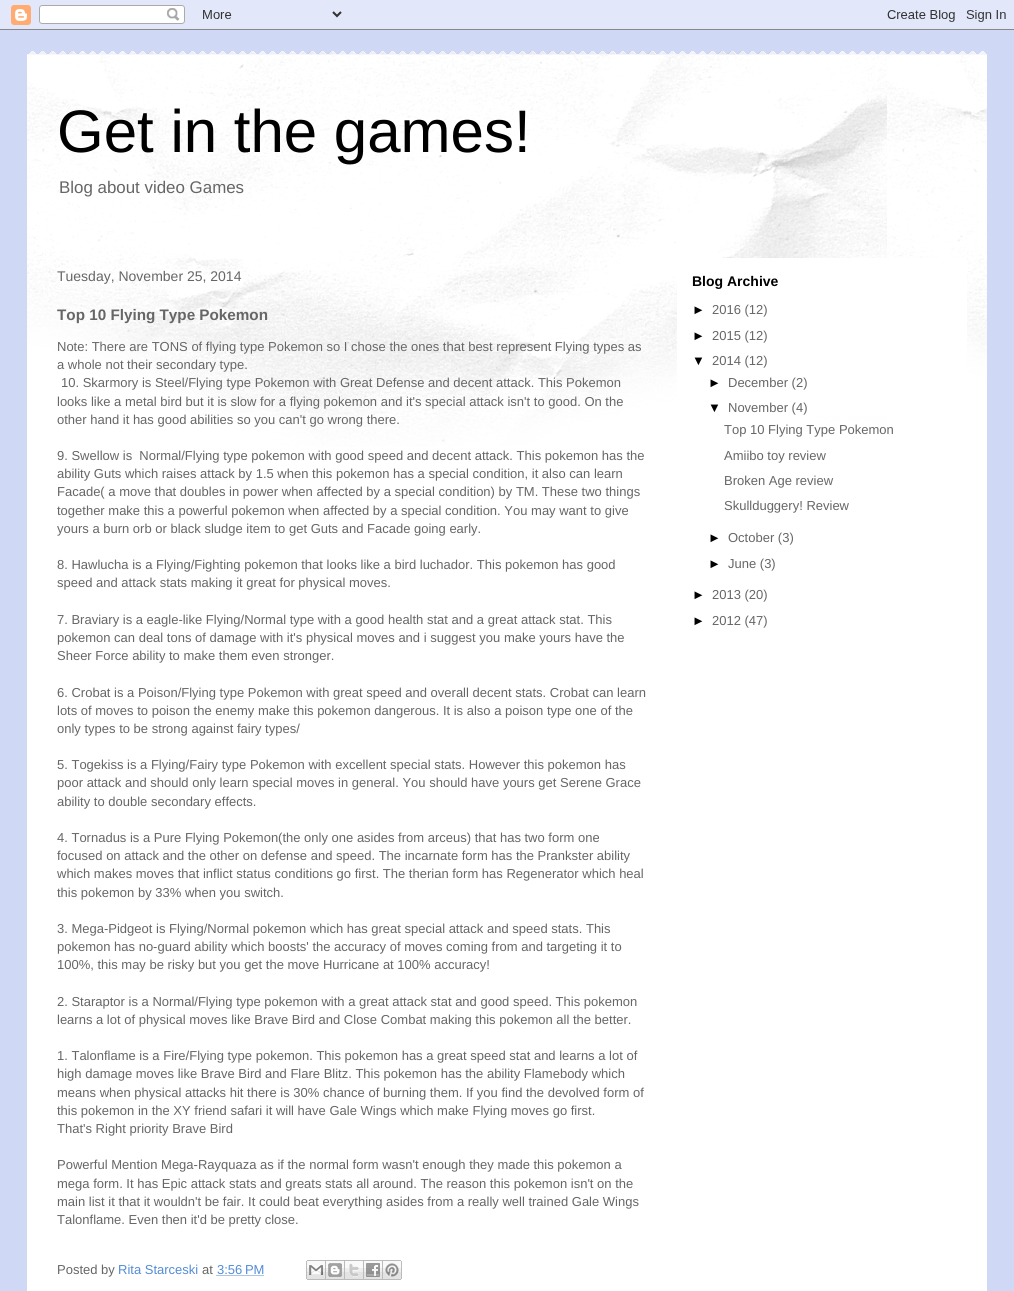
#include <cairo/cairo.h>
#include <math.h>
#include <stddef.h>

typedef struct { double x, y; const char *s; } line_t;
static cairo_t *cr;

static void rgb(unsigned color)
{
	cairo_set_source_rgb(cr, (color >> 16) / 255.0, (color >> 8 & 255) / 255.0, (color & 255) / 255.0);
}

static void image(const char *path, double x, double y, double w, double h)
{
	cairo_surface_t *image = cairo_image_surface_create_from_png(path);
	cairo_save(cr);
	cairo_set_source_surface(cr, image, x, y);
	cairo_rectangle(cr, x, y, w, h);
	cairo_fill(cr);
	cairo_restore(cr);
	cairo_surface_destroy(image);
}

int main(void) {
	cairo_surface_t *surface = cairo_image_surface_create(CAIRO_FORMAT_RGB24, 1014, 1291);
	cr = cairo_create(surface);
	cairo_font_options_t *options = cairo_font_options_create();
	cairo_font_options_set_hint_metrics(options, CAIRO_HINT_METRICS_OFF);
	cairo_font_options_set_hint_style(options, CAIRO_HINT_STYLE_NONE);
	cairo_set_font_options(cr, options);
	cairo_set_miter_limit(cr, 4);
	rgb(0xcfd9f6);
	cairo_paint(cr);
	image("img/1.png", 0, 0, 1014, 30);
	image("img/2.png", 27, 51, 960, 4);
	rgb(0xffffff);
	cairo_rectangle(cr, 27, 55, 960, 1236);
	cairo_fill(cr);
	image("img/3.png", 27, 55, 960, 392);
	cairo_rectangle(cr, 677, 258, 290, 158);
	cairo_fill(cr);
	cairo_new_path(cr);
	cairo_move_to(cr, 216.5, 1275.5);
	cairo_line_to(cr, 264, 1275.5);
	rgb(0x538cd6);
	cairo_set_line_width(cr, 1);
	cairo_set_dash(cr, (double[]){1, 1}, 2, 0);
	cairo_stroke(cr);
	image("img/4.png", 306, 1260, 20, 20);
	image("img/5.png", 326, 1260, 19, 20);
	image("img/6.png", 345, 1260, 19, 20);
	image("img/7.png", 364, 1260, 19, 20);
	image("img/8.png", 383, 1260, 19, 20);
	cairo_select_font_face(cr, "Liberation Sans", CAIRO_FONT_SLANT_NORMAL, CAIRO_FONT_WEIGHT_NORMAL);
	cairo_set_font_size(cr, 60);
	rgb(0x000000);
	cairo_move_to(cr, 57, 152);
	cairo_show_text(cr, "Get in the games!");
	cairo_set_font_size(cr, 16.9);
	rgb(0x666666);
	cairo_move_to(cr, 59, 193);
	cairo_show_text(cr, "Blog about video Games");
	cairo_set_font_size(cr, 14);
	cairo_move_to(cr, 57, 281);
	cairo_show_text(cr, "Tuesday, November 25, 2014");
	cairo_select_font_face(cr, "Liberation Sans", CAIRO_FONT_SLANT_NORMAL, CAIRO_FONT_WEIGHT_BOLD);
	cairo_set_font_size(cr, 15.25);
	cairo_move_to(cr, 57, 320);
	cairo_show_text(cr, "Top 10 Flying Type Pokemon");
	cairo_select_font_face(cr, "Liberation Sans", CAIRO_FONT_SLANT_NORMAL, CAIRO_FONT_WEIGHT_NORMAL);
	cairo_set_font_size(cr, 13);
	{
		static const line_t items[] = {
			{57, 351, "Note: There are TONS of flying type Pokemon so I chose the ones that best represent Flying types as"},
			{57, 369, "a whole not their secondary type."},
			{61, 387, "10. Skarmory is Steel/Flying type Pokemon with Great Defense and decent attack. This Pokemon"},
			{57, 406, "looks like a metal bird but it is slow for a flying pokemon and it's special attack isn't to good. On the"},
			{57, 424, "other hand it has good abilities so you can't go wrong there."},
			{57, 460, "9. Swellow is  Normal/Flying type pokemon with good speed and decent attack. This pokemon has the"},
			{57, 478, "ability Guts which raises attack by 1.5 when this pokemon has a special condition, it also can learn"},
			{57, 496, "Facade( a move that doubles in power when affected by a special condition) by TM. These two things"},
			{57, 515, "together make this a powerful pokemon when affected by a special condition. You may want to give"},
			{57, 533, "yours a burn orb or black sludge item to get Guts and Facade going early."},
			{57, 569, "8. Hawlucha is a Flying/Fighting pokemon that looks like a bird luchador. This pokemon has good"},
			{57, 587, "speed and attack stats making it great for physical moves."},
			{57, 624, "7. Braviary is a eagle-like Flying/Normal type with a good health stat and a great attack stat. This"},
			{57, 642, "pokemon can deal tons of damage with it's physical moves and i suggest you make yours have the"},
			{57, 660, "Sheer Force ability to make them even stronger."},
			{57, 697, "6. Crobat is a Poison/Flying type Pokemon with great speed and overall decent stats. Crobat can learn"},
			{57, 715, "lots of moves to poison the enemy make this pokemon dangerous. It is also a poison type one of the"},
			{57, 733, "only types to be strong against fairy types/"},
			{57, 769, "5. Togekiss is a Flying/Fairy type Pokemon with excellent special stats. However this pokemon has"},
			{57, 787, "poor attack and should only learn special moves in general. You should have yours get Serene Grace"},
			{57, 806, "ability to double secondary effects."},
			{57, 842, "4. Tornadus is a Pure Flying Pokemon(the only one asides from arceus) that has two form one"},
			{57, 860, "focused on attack and the other on defense and speed. The incarnate form has the Prankster ability"},
			{57, 878, "which makes moves that inflict status conditions go first. The therian form has Regenerator which heal"},
			{57, 897, "this pokemon by 33% when you switch."},
			{57, 933, "3. Mega-Pidgeot is Flying/Normal pokemon which has great special attack and speed stats. This"},
			{57, 951, "pokemon has no-guard ability which boosts' the accuracy of moves coming from and targeting it to"},
			{57, 969, "100%, this may be risky but you get the move Hurricane at 100% accuracy!"},
			{57, 1006, "2. Staraptor is a Normal/Flying type pokemon with a great attack stat and good speed. This pokemon"},
			{57, 1024, "learns a lot of physical moves like Brave Bird and Close Combat making this pokemon all the better."},
			{57, 1060, "1. Talonflame is a Fire/Flying type pokemon. This pokemon has a great speed stat and learns a lot of"},
			{57, 1078, "high damage moves like Brave Bird and Flare Blitz. This pokemon has the ability Flamebody which"},
			{57, 1097, "means when physical attacks hit there is 30% chance of burning them. If you find the devolved form of"},
			{57, 1115, "this pokemon in the XY friend safari it will have Gale Wings which make Flying moves go first."},
			{57, 1133, "That's Right priority Brave Bird"},
			{57, 1169, "Powerful Mention Mega-Rayquaza as if the normal form wasn't enough they made this pokemon a"},
			{57, 1188, "mega form. It has Epic attack stats and greats stats all around. The reason this pokemon isn't on the"},
			{57, 1206, "main list it that it wouldn't be fair. It could beat everything asides from a really well trained Gale Wings"},
			{57, 1224, "Talonflame. Even then it'd be pretty close."},
			{57, 1274, "Posted by"},
		};
		for (size_t i = 0; i < sizeof items / sizeof *items; i++) {
			cairo_move_to(cr, items[i].x, items[i].y);
			cairo_show_text(cr, items[i].s);
		}
	}
	rgb(0x538cd6);
	cairo_move_to(cr, 118, 1274);
	cairo_show_text(cr, "Rita Starceski");
	rgb(0x666666);
	cairo_move_to(cr, 202, 1274);
	cairo_show_text(cr, "at");
	rgb(0x538cd6);
	cairo_move_to(cr, 217, 1274);
	cairo_show_text(cr, "3:56 PM");
	cairo_select_font_face(cr, "Liberation Sans", CAIRO_FONT_SLANT_NORMAL, CAIRO_FONT_WEIGHT_BOLD);
	cairo_set_font_size(cr, 14);
	rgb(0x000000);
	cairo_move_to(cr, 692, 286);
	cairo_show_text(cr, "Blog Archive");
	cairo_select_font_face(cr, "Liberation Sans", CAIRO_FONT_SLANT_NORMAL, CAIRO_FONT_WEIGHT_NORMAL);
	cairo_set_font_size(cr, 13);
	cairo_move_to(cr, 692, 314);
	cairo_show_text(cr, "►");
	rgb(0x666666);
	cairo_move_to(cr, 712, 314);
	cairo_show_text(cr, "2016 (12)");
	rgb(0x000000);
	cairo_move_to(cr, 692, 340);
	cairo_show_text(cr, "►");
	rgb(0x666666);
	cairo_move_to(cr, 712, 340);
	cairo_show_text(cr, "2015 (12)");
	rgb(0x000000);
	cairo_move_to(cr, 692, 365);
	cairo_show_text(cr, "▼");
	rgb(0x666666);
	cairo_move_to(cr, 712, 365);
	cairo_show_text(cr, "2014 (12)");
	rgb(0x000000);
	cairo_move_to(cr, 708, 387);
	cairo_show_text(cr, "►");
	rgb(0x666666);
	cairo_move_to(cr, 728, 387);
	cairo_show_text(cr, "December (2)");
	rgb(0x000000);
	cairo_move_to(cr, 708, 412);
	cairo_show_text(cr, "▼");
	rgb(0x666666);
	{
		static const line_t items[] = {
			{728, 412, "November (4)"},
			{724, 434, "Top 10 Flying Type Pokemon"},
			{724, 460, "Amiibo toy review"},
			{724, 485, "Broken Age review"},
			{724, 510, "Skullduggery! Review"},
		};
		for (size_t i = 0; i < sizeof items / sizeof *items; i++) {
			cairo_move_to(cr, items[i].x, items[i].y);
			cairo_show_text(cr, items[i].s);
		}
	}
	rgb(0x000000);
	cairo_move_to(cr, 708, 542);
	cairo_show_text(cr, "►");
	rgb(0x666666);
	cairo_move_to(cr, 728, 542);
	cairo_show_text(cr, "October (3)");
	rgb(0x000000);
	cairo_move_to(cr, 708, 568);
	cairo_show_text(cr, "►");
	rgb(0x666666);
	cairo_move_to(cr, 728, 568);
	cairo_show_text(cr, "June (3)");
	rgb(0x000000);
	cairo_move_to(cr, 692, 599);
	cairo_show_text(cr, "►");
	rgb(0x666666);
	cairo_move_to(cr, 712, 599);
	cairo_show_text(cr, "2013 (20)");
	rgb(0x000000);
	cairo_move_to(cr, 692, 625);
	cairo_show_text(cr, "►");
	rgb(0x666666);
	cairo_move_to(cr, 712, 625);
	cairo_show_text(cr, "2012 (47)");
	cairo_surface_write_to_png(surface, "page.png");
	cairo_font_options_destroy(options);
	cairo_destroy(cr);
	cairo_surface_destroy(surface);
	return 0;
}
